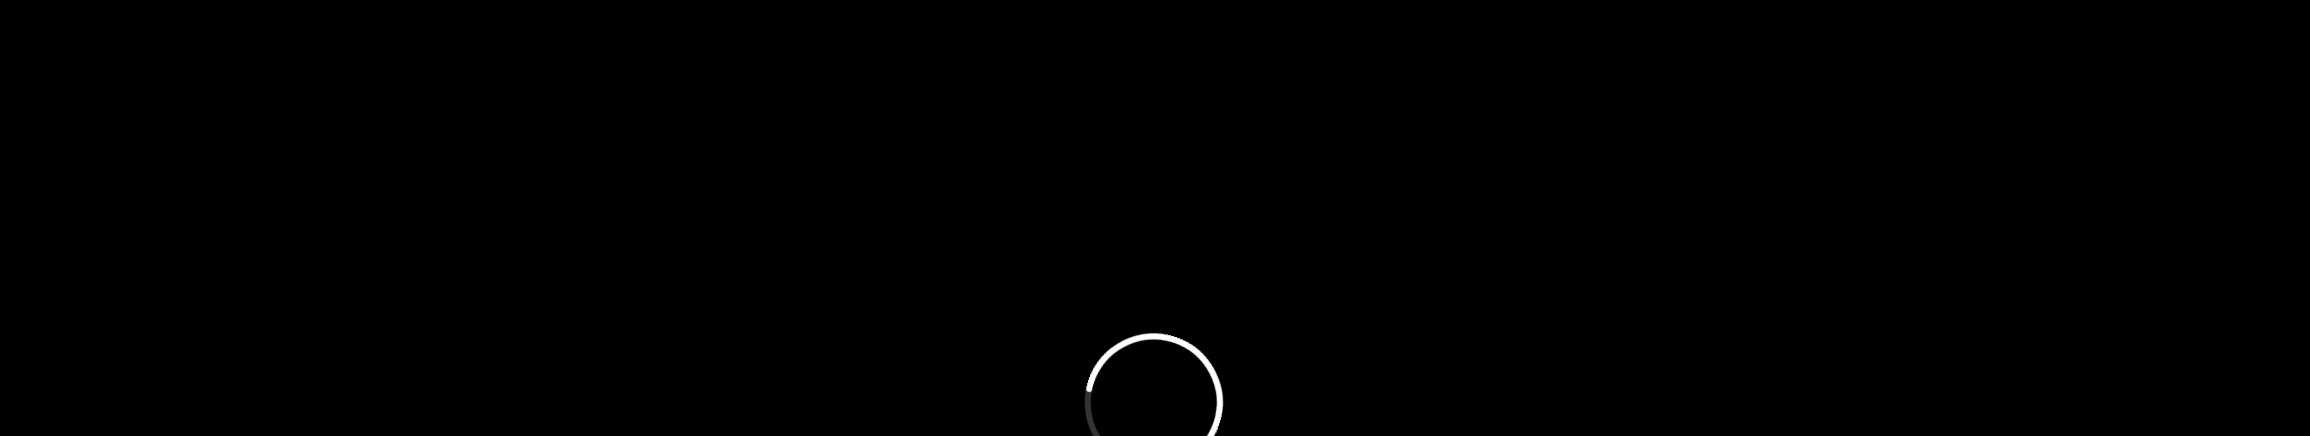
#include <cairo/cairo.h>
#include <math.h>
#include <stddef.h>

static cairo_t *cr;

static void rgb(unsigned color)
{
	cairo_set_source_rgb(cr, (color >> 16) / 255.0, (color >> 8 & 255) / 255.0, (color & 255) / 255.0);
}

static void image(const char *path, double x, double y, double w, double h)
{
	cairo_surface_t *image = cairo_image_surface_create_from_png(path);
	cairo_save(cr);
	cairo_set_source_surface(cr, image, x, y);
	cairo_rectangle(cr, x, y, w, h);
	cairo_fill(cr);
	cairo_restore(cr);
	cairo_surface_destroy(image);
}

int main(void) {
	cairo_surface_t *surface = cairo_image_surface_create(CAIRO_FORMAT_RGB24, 2310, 436);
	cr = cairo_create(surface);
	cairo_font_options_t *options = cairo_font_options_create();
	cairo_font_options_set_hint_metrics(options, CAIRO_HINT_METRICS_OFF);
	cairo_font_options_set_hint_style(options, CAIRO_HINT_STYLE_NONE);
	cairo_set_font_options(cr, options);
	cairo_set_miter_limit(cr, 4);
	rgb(0x000000);
	cairo_paint(cr);
	image("img/1.png", 1084, 332, 140, 104);
	cairo_surface_write_to_png(surface, "page.png");
	cairo_font_options_destroy(options);
	cairo_destroy(cr);
	cairo_surface_destroy(surface);
	return 0;
}
